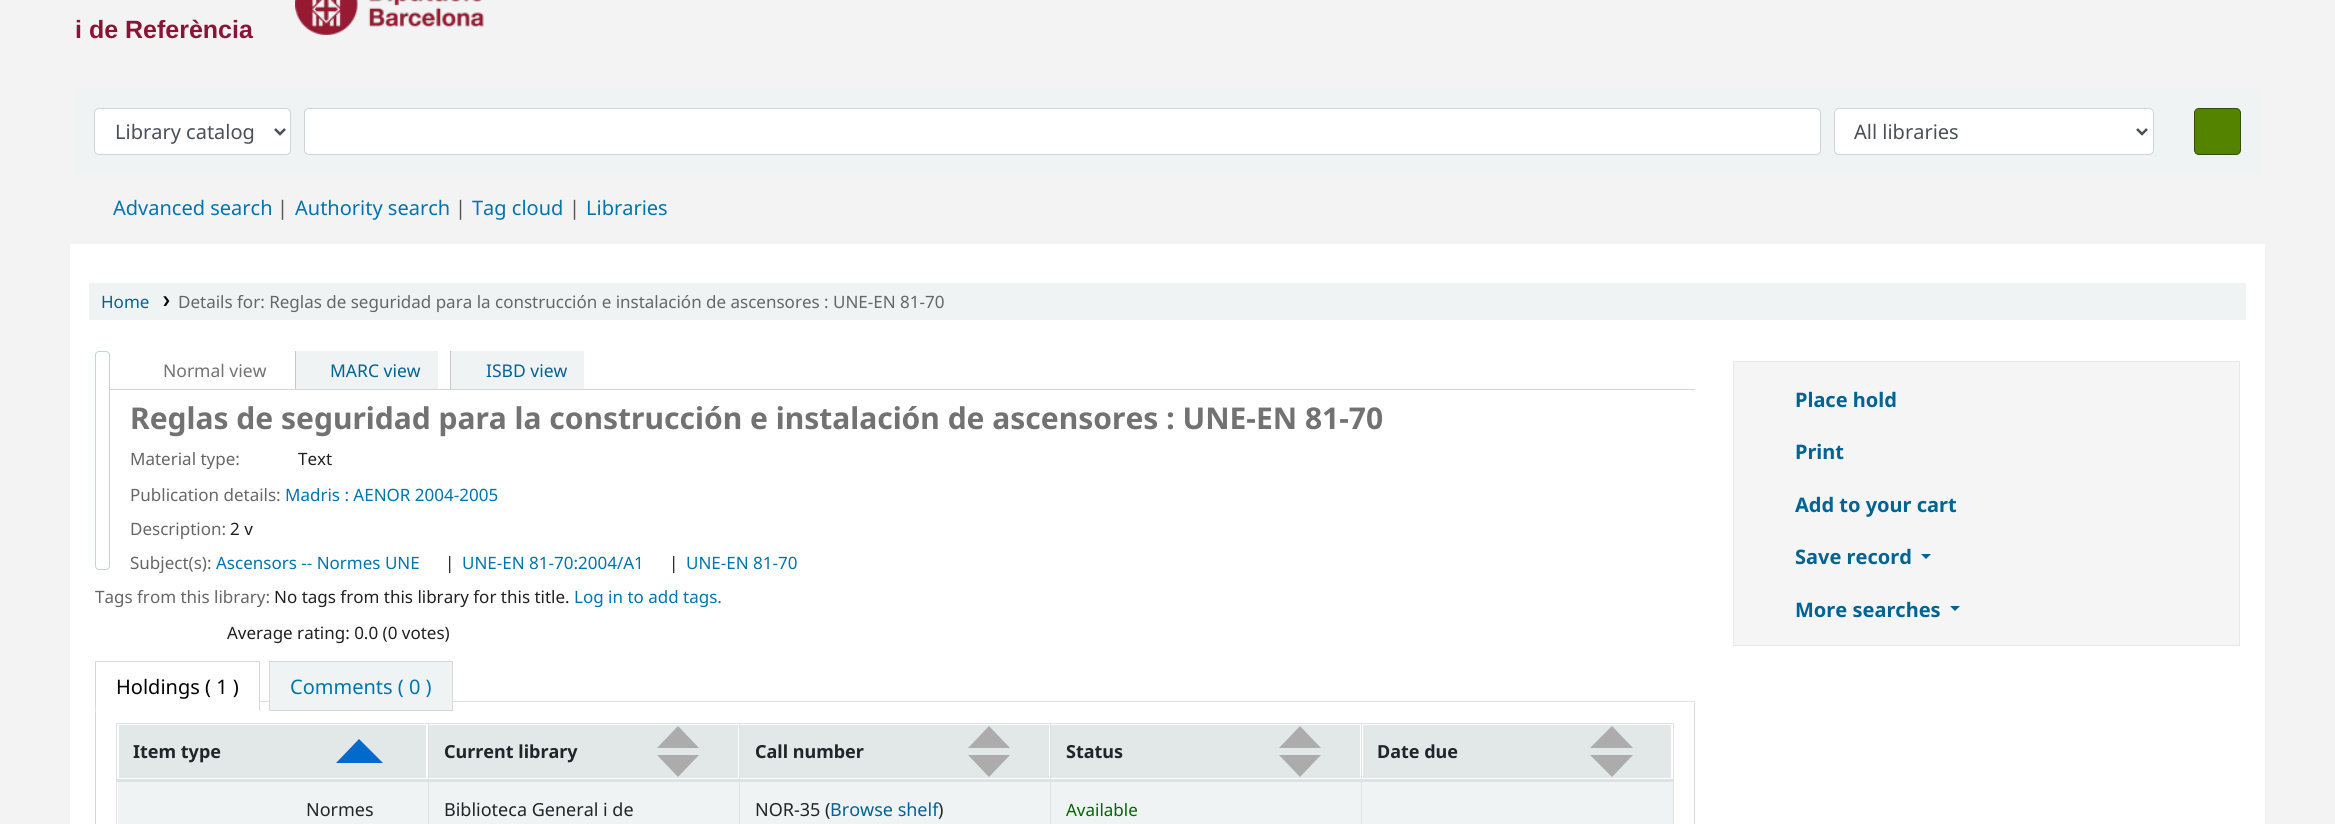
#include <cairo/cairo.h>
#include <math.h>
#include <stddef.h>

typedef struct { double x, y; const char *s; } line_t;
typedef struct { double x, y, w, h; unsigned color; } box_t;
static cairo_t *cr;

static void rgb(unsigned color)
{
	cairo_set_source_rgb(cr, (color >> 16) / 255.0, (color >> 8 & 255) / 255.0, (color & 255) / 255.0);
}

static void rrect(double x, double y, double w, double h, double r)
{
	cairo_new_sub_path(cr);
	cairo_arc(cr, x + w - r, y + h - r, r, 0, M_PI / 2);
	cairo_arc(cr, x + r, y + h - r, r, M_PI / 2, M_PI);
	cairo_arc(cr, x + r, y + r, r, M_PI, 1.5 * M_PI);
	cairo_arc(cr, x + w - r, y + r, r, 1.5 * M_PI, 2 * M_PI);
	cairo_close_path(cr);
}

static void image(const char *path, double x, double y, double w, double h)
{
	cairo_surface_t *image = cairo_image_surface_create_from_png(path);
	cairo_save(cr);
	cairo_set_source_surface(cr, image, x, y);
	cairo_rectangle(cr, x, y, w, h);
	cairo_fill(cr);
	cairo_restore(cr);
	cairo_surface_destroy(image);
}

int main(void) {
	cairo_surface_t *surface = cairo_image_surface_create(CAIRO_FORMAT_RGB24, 2335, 824);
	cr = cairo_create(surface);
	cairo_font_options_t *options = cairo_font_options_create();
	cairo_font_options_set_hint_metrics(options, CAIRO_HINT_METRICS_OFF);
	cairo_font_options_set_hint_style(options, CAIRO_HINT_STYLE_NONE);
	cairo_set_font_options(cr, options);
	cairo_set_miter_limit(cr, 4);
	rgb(0xf3f3f4);
	cairo_paint(cr);
	image("img/1.png", 295, 0, 189, 35);
	rgb(0xf0f3f3);
	cairo_rectangle(cr, 75, 89, 2185, 85);
	cairo_fill(cr);
	rgb(0xffffff);
	rrect(94.5, 108.5, 196, 46, 4.5);
	cairo_fill_preserve(cr);
	rgb(0xced4da);
	cairo_set_line_width(cr, 1);
	cairo_stroke(cr);
	cairo_new_path(cr);
	cairo_move_to(cr, 275, 129);
	cairo_line_to(cr, 280, 134);
	cairo_line_to(cr, 285, 129);
	rgb(0x495057);
	cairo_set_line_width(cr, 2.5);
	cairo_stroke(cr);
	rgb(0xffffff);
	rrect(304.5, 108.5, 1516, 46, 4.5);
	cairo_fill_preserve(cr);
	rgb(0xced4da);
	cairo_set_line_width(cr, 1);
	cairo_stroke(cr);
	rgb(0xffffff);
	rrect(1834.5, 108.5, 319, 46, 4.5);
	cairo_fill_preserve(cr);
	rgb(0xced4da);
	cairo_stroke(cr);
	cairo_new_path(cr);
	cairo_move_to(cr, 2137, 129);
	cairo_line_to(cr, 2142, 134);
	cairo_line_to(cr, 2147, 129);
	rgb(0x495057);
	cairo_set_line_width(cr, 2.5);
	cairo_stroke(cr);
	rgb(0x548300);
	rrect(2194.5, 108.5, 46, 46, 4.5);
	cairo_fill_preserve(cr);
	rgb(0x335000);
	cairo_set_line_width(cr, 1);
	cairo_stroke(cr);
	rgb(0xffffff);
	cairo_rectangle(cr, 69.5, 243.5, 2196, 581);
	cairo_fill_preserve(cr);
	rgb(0xf0f3f3);
	cairo_stroke(cr);
	cairo_rectangle(cr, 89, 283, 2157, 37);
	cairo_fill(cr);
	image("img/2.png", 163, 296, 7, 10);
	rrect(95.5, 351.5, 14, 218, 3.5);
	rgb(0xb9d8d9);
	cairo_stroke(cr);
	{
		static const box_t items[] = {
			{110, 389, 1585, 1, 0xd6d6d6},
			{296, 351, 142, 38, 0xf0f3f3},
			{295, 351, 1, 38, 0xc9c9c9},
			{451, 351, 133, 38, 0xf0f3f3},
			{450, 351, 1, 38, 0xc9c9c9},
			{260, 701, 1435, 1, 0xdee2e6},
			{95, 703, 1, 121, 0xd8d8d8},
			{95, 703, 1, 8, 0xffffff},
			{95, 661, 165, 1, 0xd8d8d8},
		};
		for (size_t i = 0; i < sizeof items / sizeof *items; i++) {
			rgb(items[i].color);
			cairo_rectangle(cr, items[i].x, items[i].y, items[i].w, items[i].h);
			cairo_fill(cr);
		}
	}
	cairo_new_path(cr);
	cairo_move_to(cr, 95, 711);
	cairo_line_to(cr, 95, 661);
	cairo_line_to(cr, 96, 662);
	cairo_line_to(cr, 96, 710);
	cairo_close_path(cr);
	cairo_fill(cr);
	cairo_new_path(cr);
	cairo_move_to(cr, 260, 661);
	cairo_line_to(cr, 260, 711);
	cairo_line_to(cr, 259, 710);
	cairo_line_to(cr, 259, 662);
	cairo_close_path(cr);
	cairo_fill(cr);
	rgb(0xf0f3f3);
	cairo_rectangle(cr, 269.5, 661.5, 183, 49);
	cairo_fill_preserve(cr);
	rgb(0xd8d8d8);
	cairo_stroke(cr);
	{
		static const box_t items[] = {
			{1694, 703, 1, 121, 0xd8d8d8},
			{116, 723, 1558, 1, 0xdee2e6},
			{1673, 723, 1, 101, 0xdee2e6},
			{116, 723, 1, 101, 0xdee2e6},
			{119, 725, 307, 53, 0xe2e8e8},
		};
		for (size_t i = 0; i < sizeof items / sizeof *items; i++) {
			rgb(items[i].color);
			cairo_rectangle(cr, items[i].x, items[i].y, items[i].w, items[i].h);
			cairo_fill(cr);
		}
	}
	rgb(0x006acc);
	cairo_new_path(cr);
	cairo_move_to(cr, 383, 763);
	cairo_line_to(cr, 336, 763);
	cairo_line_to(cr, 359, 739);
	cairo_close_path(cr);
	cairo_fill(cr);
	rgb(0xe2e8e8);
	cairo_rectangle(cr, 429, 725, 309, 53);
	cairo_fill(cr);
	rgb(0xacacac);
	cairo_new_path(cr);
	cairo_move_to(cr, 699, 755);
	cairo_line_to(cr, 657, 755);
	cairo_line_to(cr, 678, 777);
	cairo_close_path(cr);
	cairo_move_to(cr, 699, 748);
	cairo_line_to(cr, 657, 748);
	cairo_line_to(cr, 678, 726);
	cairo_close_path(cr);
	cairo_fill(cr);
	rgb(0xdee2e6);
	cairo_rectangle(cr, 428, 723, 1, 57);
	cairo_fill(cr);
	rgb(0xe2e8e8);
	cairo_rectangle(cr, 740, 725, 309, 53);
	cairo_fill(cr);
	rgb(0xacacac);
	cairo_new_path(cr);
	cairo_move_to(cr, 1010, 755);
	cairo_line_to(cr, 968, 755);
	cairo_line_to(cr, 989, 777);
	cairo_close_path(cr);
	cairo_move_to(cr, 1010, 748);
	cairo_line_to(cr, 968, 748);
	cairo_line_to(cr, 989, 726);
	cairo_close_path(cr);
	cairo_fill(cr);
	rgb(0xdee2e6);
	cairo_rectangle(cr, 739, 723, 1, 57);
	cairo_fill(cr);
	rgb(0xe2e8e8);
	cairo_rectangle(cr, 1051, 725, 309, 53);
	cairo_fill(cr);
	rgb(0xacacac);
	cairo_new_path(cr);
	cairo_move_to(cr, 1321, 755);
	cairo_line_to(cr, 1279, 755);
	cairo_line_to(cr, 1300, 777);
	cairo_close_path(cr);
	cairo_move_to(cr, 1321, 748);
	cairo_line_to(cr, 1279, 748);
	cairo_line_to(cr, 1300, 726);
	cairo_close_path(cr);
	cairo_fill(cr);
	rgb(0xdee2e6);
	cairo_rectangle(cr, 1050, 723, 1, 57);
	cairo_fill(cr);
	rgb(0xe2e8e8);
	cairo_rectangle(cr, 1363, 725, 308, 53);
	cairo_fill(cr);
	rgb(0xacacac);
	cairo_new_path(cr);
	cairo_move_to(cr, 1633, 755);
	cairo_line_to(cr, 1590, 755);
	cairo_line_to(cr, 1612, 777);
	cairo_close_path(cr);
	cairo_move_to(cr, 1633, 748);
	cairo_line_to(cr, 1590, 748);
	cairo_line_to(cr, 1612, 726);
	cairo_close_path(cr);
	cairo_fill(cr);
	{
		static const box_t items[] = {
			{1361, 723, 1, 57, 0xdee2e6},
			{428, 781, 1, 43, 0xdee2e6},
			{739, 781, 1, 43, 0xdee2e6},
			{1050, 781, 1, 43, 0xdee2e6},
			{1361, 781, 1, 43, 0xdee2e6},
			{116, 779, 1558, 3, 0xdee2e6},
			{118, 782, 310, 42, 0xf0f3f3},
			{429, 782, 310, 42, 0xf0f3f3},
			{740, 782, 310, 42, 0xf0f3f3},
			{1051, 782, 310, 42, 0xf0f3f3},
			{1362, 782, 311, 42, 0xf0f3f3},
		};
		for (size_t i = 0; i < sizeof items / sizeof *items; i++) {
			rgb(items[i].color);
			cairo_rectangle(cr, items[i].x, items[i].y, items[i].w, items[i].h);
			cairo_fill(cr);
		}
	}
	rgb(0xf5f5f5);
	cairo_rectangle(cr, 1733.5, 361.5, 506, 284);
	cairo_fill_preserve(cr);
	rgb(0xe8e8e8);
	cairo_stroke(cr);
	rgb(0x006394);
	cairo_new_path(cr);
	cairo_move_to(cr, 1921, 554);
	cairo_line_to(cr, 1931, 554);
	cairo_line_to(cr, 1926, 559);
	cairo_close_path(cr);
	cairo_fill(cr);
	cairo_new_path(cr);
	cairo_move_to(cr, 1950, 606);
	cairo_line_to(cr, 1960, 606);
	cairo_line_to(cr, 1955, 611);
	cairo_close_path(cr);
	cairo_fill(cr);
	cairo_select_font_face(cr, "Liberation Sans", CAIRO_FONT_SLANT_NORMAL, CAIRO_FONT_WEIGHT_BOLD);
	cairo_set_font_size(cr, 25);
	rgb(0x891536);
	cairo_move_to(cr, 75, 38);
	cairo_show_text(cr, "i de Referència");
	cairo_select_font_face(cr, "Noto Sans", CAIRO_FONT_SLANT_NORMAL, CAIRO_FONT_WEIGHT_NORMAL);
	cairo_set_font_size(cr, 20);
	rgb(0x495057);
	cairo_move_to(cr, 115, 139);
	cairo_show_text(cr, "Library catalog");
	cairo_move_to(cr, 1854, 139);
	cairo_show_text(cr, "All libraries");
	rgb(0x0074ad);
	cairo_move_to(cr, 113, 215);
	cairo_show_text(cr, "Advanced search");
	rgb(0x575757);
	cairo_move_to(cr, 277, 215);
	cairo_show_text(cr, "|");
	rgb(0x0074ad);
	cairo_move_to(cr, 295, 215);
	cairo_show_text(cr, "Authority search");
	rgb(0x575757);
	cairo_move_to(cr, 455, 215);
	cairo_show_text(cr, "|");
	rgb(0x0074ad);
	cairo_move_to(cr, 472, 215);
	cairo_show_text(cr, "Tag cloud");
	rgb(0x575757);
	cairo_move_to(cr, 569, 215);
	cairo_show_text(cr, "|");
	rgb(0x0074ad);
	cairo_move_to(cr, 586, 215);
	cairo_show_text(cr, "Libraries");
	cairo_set_font_size(cr, 17);
	rgb(0x006394);
	cairo_move_to(cr, 101, 308);
	cairo_show_text(cr, "Home");
	rgb(0x666666);
	cairo_move_to(cr, 178, 308);
	cairo_show_text(cr, "Details for: Reglas de seguridad para la construcción e instalación de ascensores : UNE-EN 81-70");
	cairo_set_font_size(cr, 17.5);
	rgb(0x727272);
	cairo_move_to(cr, 163, 377);
	cairo_show_text(cr, "Normal view");
	rgb(0x006394);
	cairo_move_to(cr, 330, 377);
	cairo_show_text(cr, "MARC view");
	cairo_move_to(cr, 486, 377);
	cairo_show_text(cr, "ISBD view");
	cairo_select_font_face(cr, "Noto Sans", CAIRO_FONT_SLANT_NORMAL, CAIRO_FONT_WEIGHT_BOLD);
	cairo_set_font_size(cr, 30);
	rgb(0x727272);
	cairo_move_to(cr, 130, 429);
	cairo_show_text(cr, "Reglas de seguridad para la construcción e instalación de ascensores : UNE-EN 81-70");
	cairo_select_font_face(cr, "Noto Sans", CAIRO_FONT_SLANT_NORMAL, CAIRO_FONT_WEIGHT_NORMAL);
	cairo_set_font_size(cr, 17);
	rgb(0x666666);
	cairo_move_to(cr, 130, 465);
	cairo_show_text(cr, "Material type:");
	rgb(0x202020);
	cairo_move_to(cr, 298, 465);
	cairo_show_text(cr, "Text");
	rgb(0x666666);
	cairo_move_to(cr, 130, 501);
	cairo_show_text(cr, "Publication details:");
	rgb(0x0074ad);
	cairo_move_to(cr, 285, 501);
	cairo_show_text(cr, "Madris : AENOR 2004-2005");
	rgb(0x666666);
	cairo_move_to(cr, 130, 535);
	cairo_show_text(cr, "Description:");
	rgb(0x202020);
	cairo_move_to(cr, 230, 535);
	cairo_show_text(cr, "2 v");
	rgb(0x666666);
	cairo_move_to(cr, 130, 569);
	cairo_show_text(cr, "Subject(s):");
	rgb(0x0074ad);
	cairo_move_to(cr, 216, 569);
	cairo_show_text(cr, "Ascensors -- Normes UNE");
	rgb(0x202020);
	cairo_move_to(cr, 445, 569);
	cairo_show_text(cr, "|");
	rgb(0x0074ad);
	cairo_move_to(cr, 462, 569);
	cairo_show_text(cr, "UNE-EN 81-70:2004/A1");
	rgb(0x202020);
	cairo_move_to(cr, 669, 569);
	cairo_show_text(cr, "|");
	rgb(0x0074ad);
	cairo_move_to(cr, 686, 569);
	cairo_show_text(cr, "UNE-EN 81-70");
	rgb(0x666666);
	cairo_move_to(cr, 95, 603);
	cairo_show_text(cr, "Tags from this library:");
	rgb(0x202020);
	cairo_move_to(cr, 274, 603);
	cairo_show_text(cr, "No tags from this library for this title.");
	rgb(0x0074ad);
	cairo_move_to(cr, 574, 603);
	cairo_show_text(cr, "Log in to add tags.");
	rgb(0x202020);
	cairo_move_to(cr, 227, 639);
	cairo_show_text(cr, "Average rating: 0.0 (0 votes)");
	cairo_set_font_size(cr, 20);
	rgb(0x000000);
	cairo_move_to(cr, 116, 694);
	cairo_show_text(cr, "Holdings ( 1 )");
	rgb(0x0074ad);
	cairo_move_to(cr, 290, 694);
	cairo_show_text(cr, "Comments ( 0 )");
	cairo_select_font_face(cr, "Noto Sans", CAIRO_FONT_SLANT_NORMAL, CAIRO_FONT_WEIGHT_BOLD);
	cairo_set_font_size(cr, 18);
	rgb(0x212529);
	{
		static const line_t items[] = {
			{133, 758, "Item type"},
			{444, 758, "Current library"},
			{755, 758, "Call number"},
			{1066, 758, "Status"},
			{1377, 758, "Date due"},
		};
		for (size_t i = 0; i < sizeof items / sizeof *items; i++) {
			cairo_move_to(cr, items[i].x, items[i].y);
			cairo_show_text(cr, items[i].s);
		}
	}
	cairo_select_font_face(cr, "Noto Sans", CAIRO_FONT_SLANT_NORMAL, CAIRO_FONT_WEIGHT_NORMAL);
	{
		static const line_t items[] = {
			{306, 816, "Normes"},
			{444, 816, "Biblioteca General i de"},
			{755, 816, "NOR-35 ("},
		};
		for (size_t i = 0; i < sizeof items / sizeof *items; i++) {
			cairo_move_to(cr, items[i].x, items[i].y);
			cairo_show_text(cr, items[i].s);
		}
	}
	rgb(0x006394);
	cairo_move_to(cr, 830, 816);
	cairo_show_text(cr, "Browse shelf");
	rgb(0x212529);
	cairo_move_to(cr, 938, 816);
	cairo_show_text(cr, ")");
	cairo_set_font_size(cr, 17);
	rgb(0x006600);
	cairo_move_to(cr, 1066, 816);
	cairo_show_text(cr, "Available");
	cairo_select_font_face(cr, "Noto Sans", CAIRO_FONT_SLANT_NORMAL, CAIRO_FONT_WEIGHT_BOLD);
	cairo_set_font_size(cr, 20);
	rgb(0x006394);
	{
		static const line_t items[] = {
			{1795, 407, "Place hold"},
			{1795, 459, "Print"},
			{1795, 512, "Add to your cart"},
			{1795, 564, "Save record"},
			{1795, 617, "More searches"},
		};
		for (size_t i = 0; i < sizeof items / sizeof *items; i++) {
			cairo_move_to(cr, items[i].x, items[i].y);
			cairo_show_text(cr, items[i].s);
		}
	}
	cairo_surface_write_to_png(surface, "page.png");
	cairo_font_options_destroy(options);
	cairo_destroy(cr);
	cairo_surface_destroy(surface);
	return 0;
}
